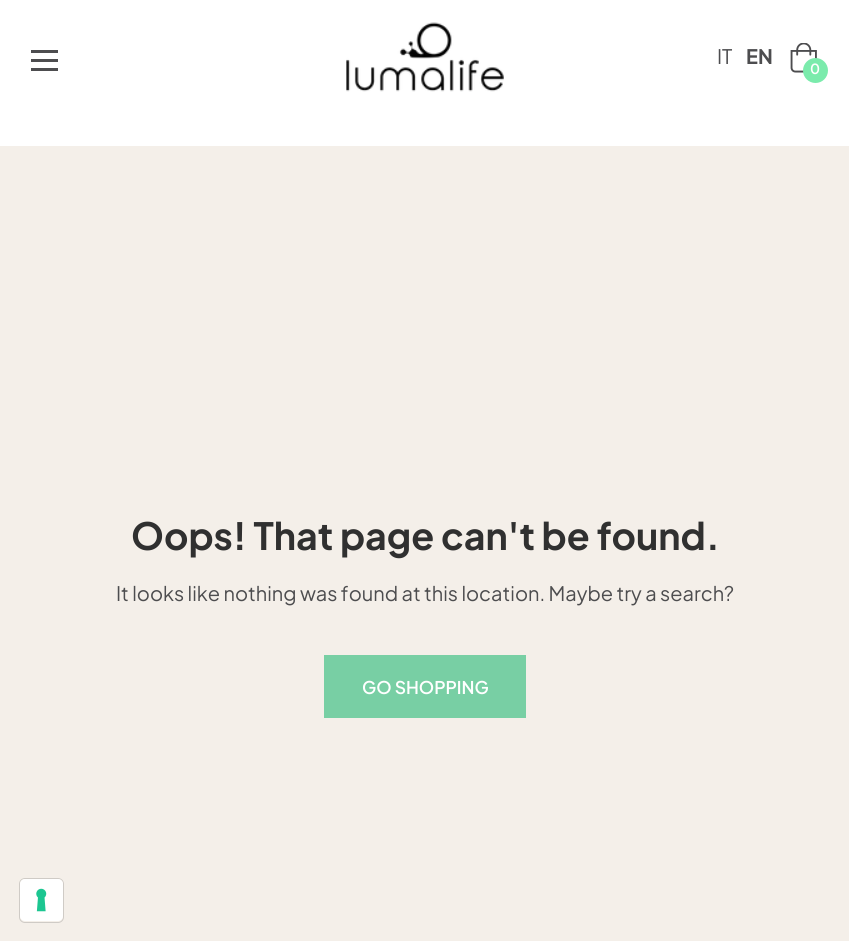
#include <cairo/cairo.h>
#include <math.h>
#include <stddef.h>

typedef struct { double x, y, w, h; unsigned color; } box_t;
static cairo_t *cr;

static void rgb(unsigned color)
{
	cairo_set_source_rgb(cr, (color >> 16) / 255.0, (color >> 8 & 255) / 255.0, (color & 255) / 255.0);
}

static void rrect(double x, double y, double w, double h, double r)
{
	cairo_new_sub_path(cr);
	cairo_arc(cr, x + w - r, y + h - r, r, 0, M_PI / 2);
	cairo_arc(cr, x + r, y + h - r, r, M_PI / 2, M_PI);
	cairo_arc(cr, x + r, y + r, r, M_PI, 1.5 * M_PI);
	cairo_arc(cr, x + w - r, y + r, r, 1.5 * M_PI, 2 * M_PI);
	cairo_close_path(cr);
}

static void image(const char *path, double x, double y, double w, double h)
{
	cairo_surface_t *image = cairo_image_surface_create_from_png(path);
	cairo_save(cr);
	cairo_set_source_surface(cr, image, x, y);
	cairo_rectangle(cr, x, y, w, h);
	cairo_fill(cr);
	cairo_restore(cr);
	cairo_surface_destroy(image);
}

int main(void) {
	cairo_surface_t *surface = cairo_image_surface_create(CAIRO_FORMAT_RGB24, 849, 941);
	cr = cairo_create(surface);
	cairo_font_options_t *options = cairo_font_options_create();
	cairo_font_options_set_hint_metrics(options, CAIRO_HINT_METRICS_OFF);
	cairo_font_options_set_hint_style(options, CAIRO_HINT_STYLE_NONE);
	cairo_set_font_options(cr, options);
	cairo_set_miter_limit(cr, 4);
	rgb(0xffffff);
	cairo_paint(cr);
	{
		static const box_t items[] = {
			{31, 50, 27, 3, 0x4d4d4f},
			{31, 59, 27, 3, 0x4d4d4f},
			{31, 68, 27, 3, 0x4d4d4f},
		};
		for (size_t i = 0; i < sizeof items / sizeof *items; i++) {
			rgb(items[i].color);
			cairo_rectangle(cr, items[i].x, items[i].y, items[i].w, items[i].h);
			cairo_fill(cr);
		}
	}
	image("img/1.png", 346, 22, 158, 70);
	image("img/2.png", 790, 43, 27, 30);
	rgb(0x7bebac);
	cairo_arc(cr, 815.5, 70.5, 12.5, 0, 2 * M_PI);
	cairo_fill(cr);
	rgb(0xf4efe9);
	cairo_rectangle(cr, 0, 146, 849, 795);
	cairo_fill(cr);
	rgb(0x78cfa4);
	cairo_rectangle(cr, 324, 655, 202, 63);
	cairo_fill(cr);
	rrect(19.5, 878.5, 44, 44, 5.5);
	rgb(0xcfcbc6);
	cairo_set_line_width(cr, 1);
	cairo_stroke(cr);
	rgb(0xffffff);
	rrect(20, 879, 43, 42, 5);
	cairo_fill(cr);
	image("img/3.png", 36, 888, 11, 24);
	cairo_select_font_face(cr, "Plus Jakarta Sans", CAIRO_FONT_SLANT_NORMAL, CAIRO_FONT_WEIGHT_NORMAL);
	cairo_set_font_size(cr, 20);
	rgb(0x4d4d4f);
	cairo_move_to(cr, 717, 64);
	cairo_show_text(cr, "IT");
	cairo_select_font_face(cr, "Plus Jakarta Sans", CAIRO_FONT_SLANT_NORMAL, CAIRO_FONT_WEIGHT_BOLD);
	cairo_move_to(cr, 746, 64);
	cairo_show_text(cr, "EN");
	cairo_select_font_face(cr, "Plus Jakarta Sans SemiBold", CAIRO_FONT_SLANT_NORMAL, CAIRO_FONT_WEIGHT_NORMAL);
	cairo_set_font_size(cr, 14);
	rgb(0xffffff);
	cairo_move_to(cr, 810, 74);
	cairo_show_text(cr, "0");
	cairo_select_font_face(cr, "Plus Jakarta Sans", CAIRO_FONT_SLANT_NORMAL, CAIRO_FONT_WEIGHT_BOLD);
	cairo_set_font_size(cr, 37.5);
	rgb(0x303030);
	cairo_move_to(cr, 131, 550);
	cairo_show_text(cr, "Oops! That page can't be found.");
	cairo_select_font_face(cr, "Plus Jakarta Sans", CAIRO_FONT_SLANT_NORMAL, CAIRO_FONT_WEIGHT_NORMAL);
	cairo_set_font_size(cr, 20);
	rgb(0x4d4d4f);
	cairo_move_to(cr, 116, 601);
	cairo_show_text(cr, "It looks like nothing was found at this location. Maybe try a search?");
	cairo_select_font_face(cr, "Plus Jakarta Sans SemiBold", CAIRO_FONT_SLANT_NORMAL, CAIRO_FONT_WEIGHT_NORMAL);
	cairo_set_font_size(cr, 17.5);
	rgb(0xffffff);
	cairo_move_to(cr, 362, 694);
	cairo_show_text(cr, "GO SHOPPING");
	cairo_surface_write_to_png(surface, "page.png");
	cairo_font_options_destroy(options);
	cairo_destroy(cr);
	cairo_surface_destroy(surface);
	return 0;
}
